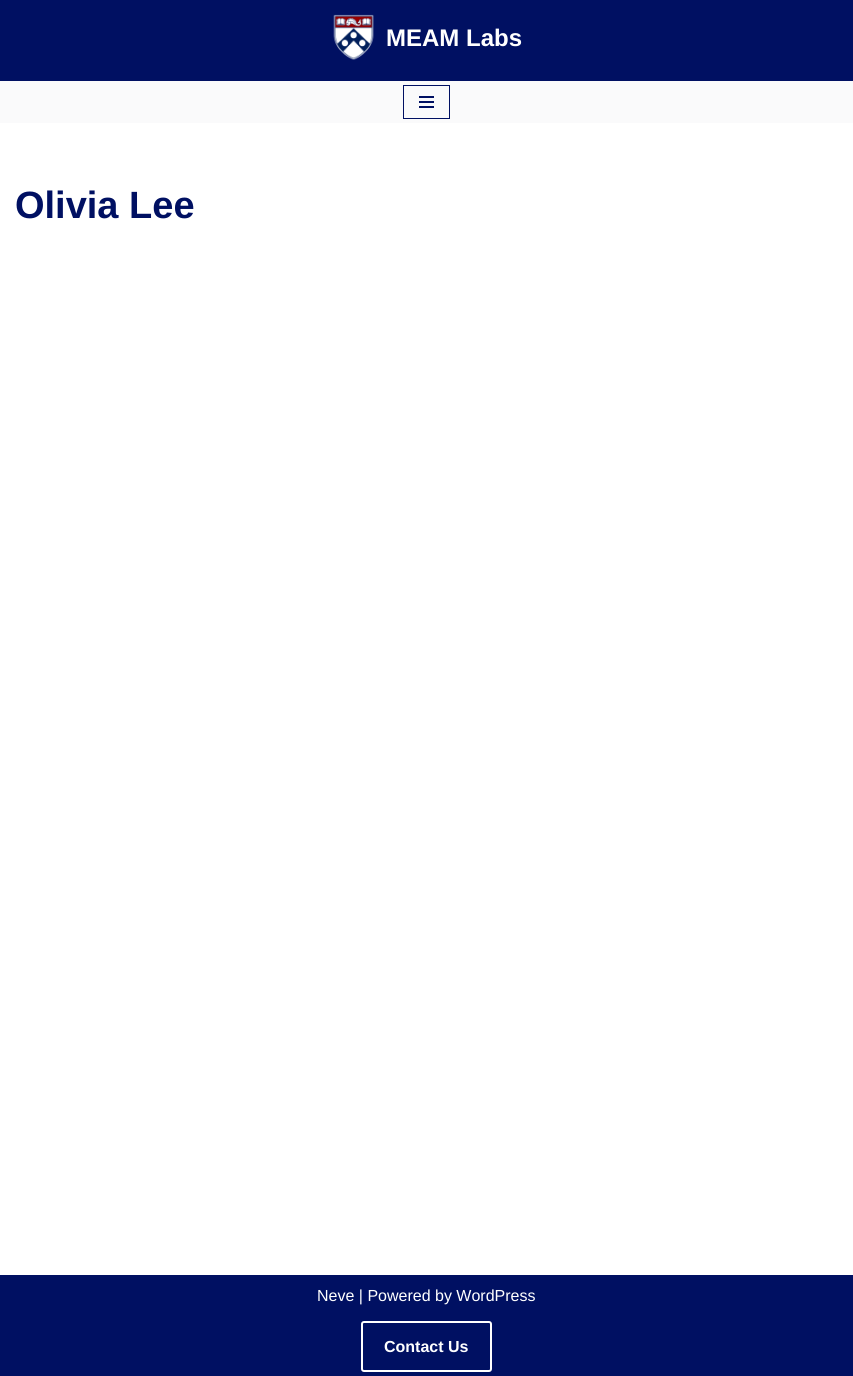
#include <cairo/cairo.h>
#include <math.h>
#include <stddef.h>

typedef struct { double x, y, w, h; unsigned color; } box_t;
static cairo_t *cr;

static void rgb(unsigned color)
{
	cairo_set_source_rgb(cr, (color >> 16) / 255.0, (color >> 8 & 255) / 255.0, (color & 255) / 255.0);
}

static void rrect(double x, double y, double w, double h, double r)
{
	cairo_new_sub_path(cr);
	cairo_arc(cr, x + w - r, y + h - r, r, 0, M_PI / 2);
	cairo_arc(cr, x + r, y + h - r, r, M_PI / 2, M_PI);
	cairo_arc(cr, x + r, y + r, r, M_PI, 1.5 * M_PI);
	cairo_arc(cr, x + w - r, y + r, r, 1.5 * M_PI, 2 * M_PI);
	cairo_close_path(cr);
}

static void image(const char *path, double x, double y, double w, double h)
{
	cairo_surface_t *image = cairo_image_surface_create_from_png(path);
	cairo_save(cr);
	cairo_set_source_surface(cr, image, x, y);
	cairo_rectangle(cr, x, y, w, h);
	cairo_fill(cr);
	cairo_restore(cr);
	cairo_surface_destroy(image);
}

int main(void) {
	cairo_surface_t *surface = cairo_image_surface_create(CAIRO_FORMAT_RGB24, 853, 1376);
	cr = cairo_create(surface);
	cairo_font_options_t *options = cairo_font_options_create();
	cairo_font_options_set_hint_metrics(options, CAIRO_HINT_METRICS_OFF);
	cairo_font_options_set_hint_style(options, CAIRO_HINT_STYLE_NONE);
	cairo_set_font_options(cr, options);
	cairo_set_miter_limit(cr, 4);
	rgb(0xffffff);
	cairo_paint(cr);
	rgb(0x001062);
	cairo_rectangle(cr, 0, 0, 853, 81);
	cairo_fill(cr);
	image("img/1.png", 333, 14, 41, 46);
	rgb(0xfafafb);
	cairo_rectangle(cr, 0, 81, 853, 42);
	cairo_fill(cr);
	cairo_rectangle(cr, 403.5, 85.5, 46, 33);
	rgb(0x001062);
	cairo_set_line_width(cr, 1);
	cairo_stroke(cr);
	{
		static const box_t items[] = {
			{419, 96, 15, 2, 0x001062},
			{419, 101, 15, 2, 0x001062},
			{419, 106, 15, 2, 0x001062},
			{0, 1275, 853, 101, 0x001062},
		};
		for (size_t i = 0; i < sizeof items / sizeof *items; i++) {
			rgb(items[i].color);
			cairo_rectangle(cr, items[i].x, items[i].y, items[i].w, items[i].h);
			cairo_fill(cr);
		}
	}
	rrect(362, 1322, 129, 49, 2);
	rgb(0xffffff);
	cairo_set_line_width(cr, 2);
	cairo_stroke(cr);
	cairo_select_font_face(cr, "Liberation Sans", CAIRO_FONT_SLANT_NORMAL, CAIRO_FONT_WEIGHT_BOLD);
	cairo_set_font_size(cr, 24);
	cairo_move_to(cr, 386, 46);
	cairo_show_text(cr, "MEAM Labs");
	cairo_set_font_size(cr, 38);
	rgb(0x001062);
	cairo_move_to(cr, 15, 218);
	cairo_show_text(cr, "Olivia Lee");
	cairo_select_font_face(cr, "Liberation Sans", CAIRO_FONT_SLANT_NORMAL, CAIRO_FONT_WEIGHT_NORMAL);
	cairo_set_font_size(cr, 16);
	rgb(0xffffff);
	cairo_move_to(cr, 317, 1301);
	cairo_show_text(cr, "Neve | Powered by WordPress");
	cairo_select_font_face(cr, "Liberation Sans", CAIRO_FONT_SLANT_NORMAL, CAIRO_FONT_WEIGHT_BOLD);
	cairo_move_to(cr, 384, 1352);
	cairo_show_text(cr, "Contact Us");
	cairo_surface_write_to_png(surface, "page.png");
	cairo_font_options_destroy(options);
	cairo_destroy(cr);
	cairo_surface_destroy(surface);
	return 0;
}
